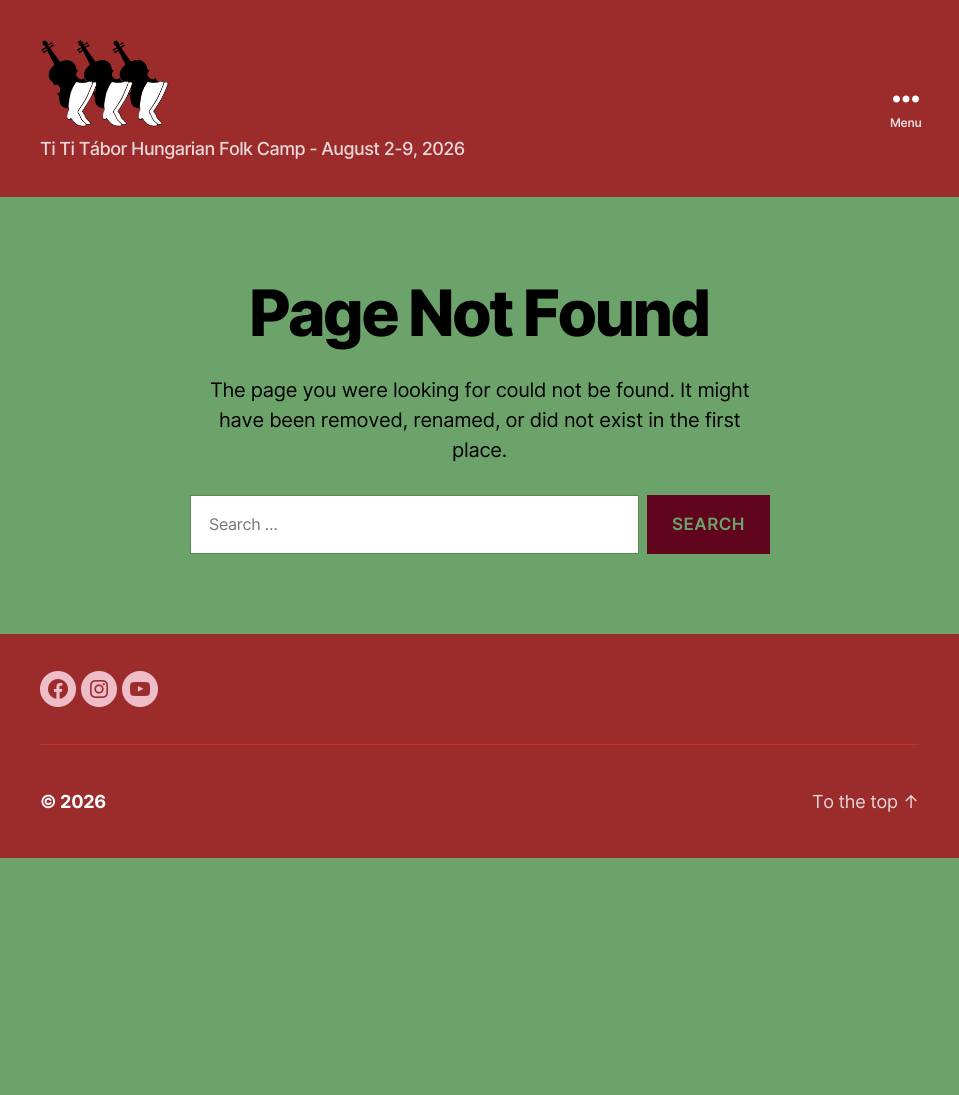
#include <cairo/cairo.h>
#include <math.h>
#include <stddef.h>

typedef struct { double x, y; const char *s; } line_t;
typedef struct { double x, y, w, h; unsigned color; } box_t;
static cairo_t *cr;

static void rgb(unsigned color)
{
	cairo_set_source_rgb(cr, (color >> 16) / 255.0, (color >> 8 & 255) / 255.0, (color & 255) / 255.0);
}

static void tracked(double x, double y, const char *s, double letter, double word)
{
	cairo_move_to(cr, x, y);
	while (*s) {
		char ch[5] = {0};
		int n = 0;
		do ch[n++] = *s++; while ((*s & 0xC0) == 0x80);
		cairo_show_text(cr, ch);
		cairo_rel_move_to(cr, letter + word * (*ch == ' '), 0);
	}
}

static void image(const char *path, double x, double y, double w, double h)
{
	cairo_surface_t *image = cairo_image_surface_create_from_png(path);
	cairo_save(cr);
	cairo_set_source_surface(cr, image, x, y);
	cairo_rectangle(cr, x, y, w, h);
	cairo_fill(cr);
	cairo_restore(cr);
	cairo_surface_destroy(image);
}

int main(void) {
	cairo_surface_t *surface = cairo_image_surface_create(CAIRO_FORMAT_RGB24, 959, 1095);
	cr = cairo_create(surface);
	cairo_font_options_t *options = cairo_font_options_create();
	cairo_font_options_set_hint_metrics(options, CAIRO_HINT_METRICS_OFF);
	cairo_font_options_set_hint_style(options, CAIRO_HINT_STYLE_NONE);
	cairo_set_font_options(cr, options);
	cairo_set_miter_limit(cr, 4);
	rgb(0x6ba36b);
	cairo_paint(cr);
	rgb(0x9c2c2c);
	cairo_rectangle(cr, 0, 0, 959, 197);
	cairo_fill(cr);
	image("img/1.png", 893, 95, 26, 8);
	image("img/2.png", 41, 40, 128, 87);
	rgb(0xffffff);
	cairo_rectangle(cr, 190.5, 495.5, 448, 58);
	cairo_fill_preserve(cr);
	rgb(0x568a56);
	cairo_set_line_width(cr, 1);
	cairo_stroke(cr);
	{
		static const box_t items[] = {
			{647, 495, 123, 59, 0x61041d},
			{0, 634, 959, 224, 0x9c2c2c},
			{40, 744, 879, 1, 0xc93030},
		};
		for (size_t i = 0; i < sizeof items / sizeof *items; i++) {
			rgb(items[i].color);
			cairo_rectangle(cr, items[i].x, items[i].y, items[i].w, items[i].h);
			cairo_fill(cr);
		}
	}
	rgb(0xefbdc8);
	cairo_arc(cr, 58, 689, 18, 0, 2 * M_PI);
	cairo_fill(cr);
	image("img/3.png", 48, 679, 20, 20);
	cairo_arc(cr, 99, 689, 18, 0, 2 * M_PI);
	cairo_fill(cr);
	image("img/4.png", 90, 680, 18, 18);
	cairo_arc(cr, 140, 689, 18, 0, 2 * M_PI);
	cairo_fill(cr);
	image("img/5.png", 130, 682, 20, 14);
	cairo_select_font_face(cr, "Inter SemiBold", CAIRO_FONT_SLANT_NORMAL, CAIRO_FONT_WEIGHT_NORMAL);
	cairo_set_font_size(cr, 12);
	rgb(0xe8d7d7);
	tracked(890, 127, "Menu", -0.27, 0);
	cairo_select_font_face(cr, "Inter Medium", CAIRO_FONT_SLANT_NORMAL, CAIRO_FONT_WEIGHT_NORMAL);
	cairo_set_font_size(cr, 18);
	tracked(40, 155, "Ti Ti Tábor Hungarian Folk Camp - August 2-9, 2026", -0.55, 0);
	cairo_select_font_face(cr, "Inter ExtraBold", CAIRO_FONT_SLANT_NORMAL, CAIRO_FONT_WEIGHT_NORMAL);
	cairo_set_font_size(cr, 64);
	rgb(0x000000);
	tracked(249, 336, "Page Not Found", -2.7, 0);
	cairo_select_font_face(cr, "Inter", CAIRO_FONT_SLANT_NORMAL, CAIRO_FONT_WEIGHT_NORMAL);
	cairo_set_font_size(cr, 20);
	{
		static const line_t items[] = {
			{210, 397, "The page you were looking for could not be found. It might"},
			{219, 427, "have been removed, renamed, or did not exist in the first"},
			{452, 457, "place."},
		};
		for (size_t i = 0; i < sizeof items / sizeof *items; i++) {
			tracked(items[i].x, items[i].y, items[i].s, -0.27, 0);
		}
	}
	cairo_set_font_size(cr, 16);
	rgb(0x757575);
	tracked(209, 530, "Search …", -0.25, 0);
	cairo_select_font_face(cr, "Inter SemiBold", CAIRO_FONT_SLANT_NORMAL, CAIRO_FONT_WEIGHT_NORMAL);
	cairo_set_font_size(cr, 17);
	rgb(0x6ba36b);
	tracked(672, 530, "SEARCH", 0.5, 0);
	cairo_select_font_face(cr, "Inter", CAIRO_FONT_SLANT_NORMAL, CAIRO_FONT_WEIGHT_BOLD);
	cairo_set_font_size(cr, 18);
	rgb(0xffffff);
	tracked(40, 808, "© 2026", -0.27, 0);
	cairo_select_font_face(cr, "Inter", CAIRO_FONT_SLANT_NORMAL, CAIRO_FONT_WEIGHT_NORMAL);
	rgb(0xe8d7d7);
	tracked(812, 808, "To the top ↑", -0.27, 0);
	cairo_surface_write_to_png(surface, "page.png");
	cairo_font_options_destroy(options);
	cairo_destroy(cr);
	cairo_surface_destroy(surface);
	return 0;
}
